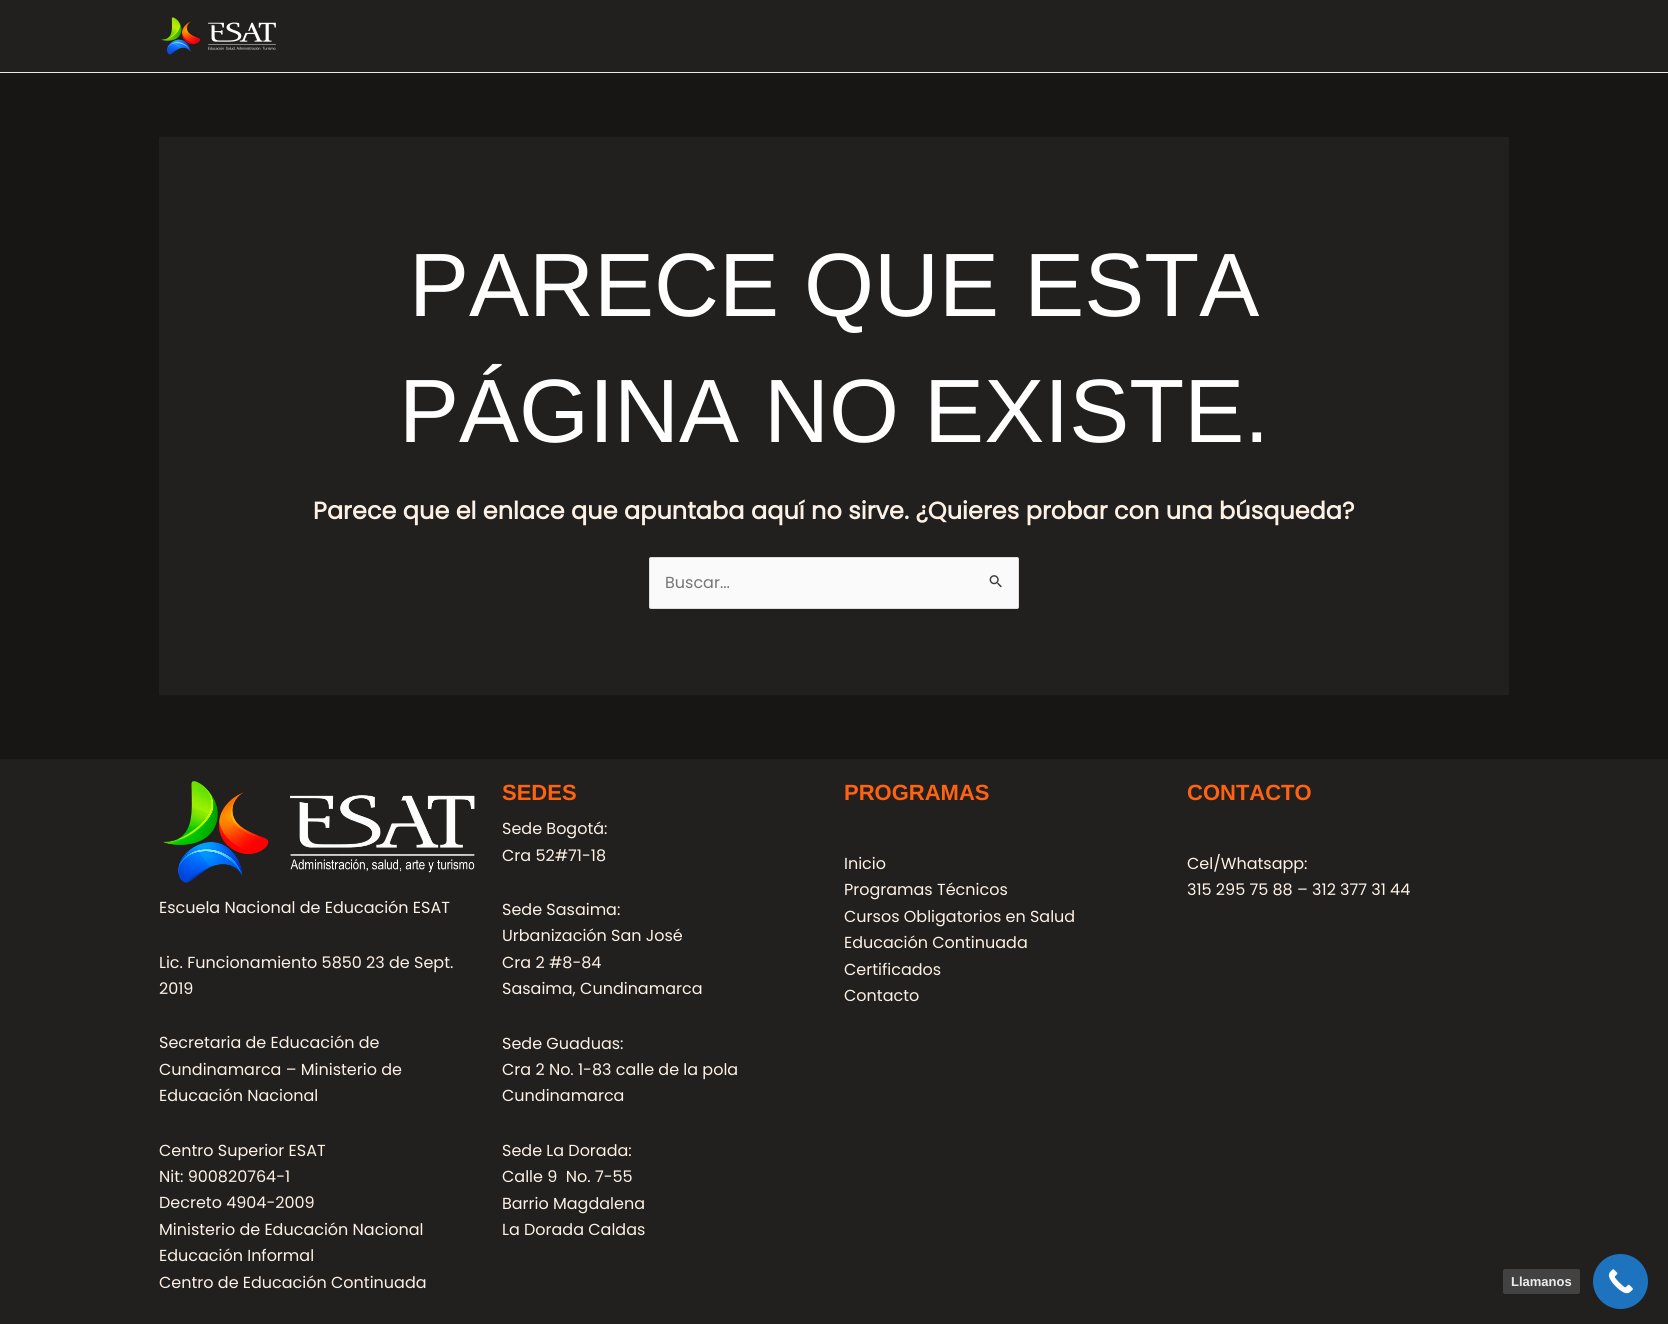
#include <cairo/cairo.h>
#include <math.h>
#include <stddef.h>

typedef struct { double x, y; const char *s; } line_t;
static cairo_t *cr;

static void rgb(unsigned color)
{
	cairo_set_source_rgb(cr, (color >> 16) / 255.0, (color >> 8 & 255) / 255.0, (color & 255) / 255.0);
}

static void rrect(double x, double y, double w, double h, double r)
{
	cairo_new_sub_path(cr);
	cairo_arc(cr, x + w - r, y + h - r, r, 0, M_PI / 2);
	cairo_arc(cr, x + r, y + h - r, r, M_PI / 2, M_PI);
	cairo_arc(cr, x + r, y + r, r, M_PI, 1.5 * M_PI);
	cairo_arc(cr, x + w - r, y + r, r, 1.5 * M_PI, 2 * M_PI);
	cairo_close_path(cr);
}

static void image(const char *path, double x, double y, double w, double h)
{
	cairo_surface_t *image = cairo_image_surface_create_from_png(path);
	cairo_save(cr);
	cairo_set_source_surface(cr, image, x, y);
	cairo_rectangle(cr, x, y, w, h);
	cairo_fill(cr);
	cairo_restore(cr);
	cairo_surface_destroy(image);
}

int main(void) {
	cairo_surface_t *surface = cairo_image_surface_create(CAIRO_FORMAT_RGB24, 1668, 1324);
	cr = cairo_create(surface);
	cairo_font_options_t *options = cairo_font_options_create();
	cairo_font_options_set_hint_metrics(options, CAIRO_HINT_METRICS_OFF);
	cairo_font_options_set_hint_style(options, CAIRO_HINT_STYLE_NONE);
	cairo_set_font_options(cr, options);
	cairo_set_miter_limit(cr, 4);
	rgb(0x171615);
	cairo_paint(cr);
	rgb(0x21201f);
	cairo_rectangle(cr, 0, 0, 1668, 72);
	cairo_fill(cr);
	rgb(0xeaeaea);
	cairo_rectangle(cr, 0, 72, 1668, 1);
	cairo_fill(cr);
	image("img/1.png", 161, 17, 115, 38);
	rgb(0x21201f);
	cairo_rectangle(cr, 159, 137, 1350, 558);
	cairo_fill(cr);
	rgb(0xfafafa);
	rrect(649.5, 557.5, 369, 51, 1.5);
	cairo_fill_preserve(cr);
	rgb(0xdddddd);
	cairo_set_line_width(cr, 1);
	cairo_stroke(cr);
	image("img/2.png", 989, 575, 13, 13);
	rgb(0x21201f);
	cairo_rectangle(cr, 0, 759, 1668, 565);
	cairo_fill(cr);
	image("img/3.png", 163, 781, 312, 102);
	rgb(0x1e73be);
	cairo_arc(cr, 1620.5, 1281.5, 27.5, 0, 2 * M_PI);
	cairo_fill(cr);
	image("img/4.png", 1608, 1269, 25, 25);
	rgb(0x424242);
	rrect(1503, 1269, 77, 25, 2);
	cairo_fill(cr);
	cairo_select_font_face(cr, "Liberation Sans", CAIRO_FONT_SLANT_NORMAL, CAIRO_FONT_WEIGHT_NORMAL);
	cairo_set_font_size(cr, 90);
	rgb(0xffffff);
	cairo_move_to(cr, 409, 316);
	cairo_show_text(cr, "PARECE QUE ESTA");
	cairo_move_to(cr, 399, 442);
	cairo_show_text(cr, "PÁGINA NO EXISTE.");
	cairo_select_font_face(cr, "Poppins", CAIRO_FONT_SLANT_NORMAL, CAIRO_FONT_WEIGHT_BOLD);
	cairo_set_font_size(cr, 24);
	rgb(0xfef1e4);
	cairo_move_to(cr, 313, 519);
	cairo_show_text(cr, "Parece que el enlace que apuntaba aquí no sirve. ¿Quieres probar con una búsqueda?");
	cairo_select_font_face(cr, "Poppins", CAIRO_FONT_SLANT_NORMAL, CAIRO_FONT_WEIGHT_NORMAL);
	cairo_set_font_size(cr, 16);
	rgb(0x757575);
	cairo_move_to(cr, 665, 588);
	cairo_show_text(cr, "Buscar...");
	cairo_select_font_face(cr, "Liberation Sans", CAIRO_FONT_SLANT_NORMAL, CAIRO_FONT_WEIGHT_BOLD);
	cairo_set_font_size(cr, 22);
	rgb(0xff6210);
	cairo_move_to(cr, 502, 800);
	cairo_show_text(cr, "SEDES");
	cairo_select_font_face(cr, "Poppins", CAIRO_FONT_SLANT_NORMAL, CAIRO_FONT_WEIGHT_NORMAL);
	cairo_set_font_size(cr, 16);
	rgb(0xfef1e4);
	{
		static const line_t items[] = {
			{502, 834, "Sede Bogotá:"},
			{502, 861, "Cra 52#71-18"},
			{502, 915, "Sede Sasaima:"},
			{502, 941, "Urbanización San José"},
			{502, 968, "Cra 2 #8-84"},
			{502, 994, "Sasaima, Cundinamarca"},
			{502, 1049, "Sede Guaduas:"},
			{502, 1075, "Cra 2 No. 1-83 calle de la pola"},
			{502, 1101, "Cundinamarca"},
			{502, 1156, "Sede La Dorada:"},
			{502, 1182, "Calle 9  No. 7-55"},
			{502, 1209, "Barrio Magdalena"},
			{502, 1235, "La Dorada Caldas"},
		};
		for (size_t i = 0; i < sizeof items / sizeof *items; i++) {
			cairo_move_to(cr, items[i].x, items[i].y);
			cairo_show_text(cr, items[i].s);
		}
	}
	cairo_select_font_face(cr, "Liberation Sans", CAIRO_FONT_SLANT_NORMAL, CAIRO_FONT_WEIGHT_BOLD);
	cairo_set_font_size(cr, 22);
	rgb(0xff6210);
	cairo_move_to(cr, 844, 800);
	cairo_show_text(cr, "PROGRAMAS");
	cairo_select_font_face(cr, "Poppins", CAIRO_FONT_SLANT_NORMAL, CAIRO_FONT_WEIGHT_NORMAL);
	cairo_set_font_size(cr, 16);
	rgb(0xfef1e4);
	{
		static const line_t items[] = {
			{844, 869, "Inicio"},
			{844, 895, "Programas Técnicos"},
			{844, 922, "Cursos Obligatorios en Salud"},
			{844, 948, "Educación Continuada"},
			{844, 975, "Certificados"},
			{844, 1001, "Contacto"},
		};
		for (size_t i = 0; i < sizeof items / sizeof *items; i++) {
			cairo_move_to(cr, items[i].x, items[i].y);
			cairo_show_text(cr, items[i].s);
		}
	}
	cairo_select_font_face(cr, "Liberation Sans", CAIRO_FONT_SLANT_NORMAL, CAIRO_FONT_WEIGHT_BOLD);
	cairo_set_font_size(cr, 22);
	rgb(0xff6210);
	cairo_move_to(cr, 1187, 800);
	cairo_show_text(cr, "CONTACTO");
	cairo_select_font_face(cr, "Poppins", CAIRO_FONT_SLANT_NORMAL, CAIRO_FONT_WEIGHT_NORMAL);
	cairo_set_font_size(cr, 16);
	rgb(0xfef1e4);
	{
		static const line_t items[] = {
			{1187, 869, "Cel/Whatsapp:"},
			{1187, 895, "315 295 75 88 – 312 377 31 44"},
			{159, 913, "Escuela Nacional de Educación ESAT"},
			{159, 968, "Lic. Funcionamiento 5850 23 de Sept."},
			{159, 994, "2019"},
			{159, 1048, "Secretaria de Educación de"},
			{159, 1075, "Cundinamarca – Ministerio de"},
			{159, 1101, "Educación Nacional"},
			{159, 1156, "Centro Superior ESAT"},
			{159, 1182, "Nit: 900820764-1"},
			{159, 1208, "Decreto 4904-2009"},
			{159, 1235, "Ministerio de Educación Nacional"},
			{159, 1261, "Educación Informal"},
			{159, 1288, "Centro de Educación Continuada"},
		};
		for (size_t i = 0; i < sizeof items / sizeof *items; i++) {
			cairo_move_to(cr, items[i].x, items[i].y);
			cairo_show_text(cr, items[i].s);
		}
	}
	cairo_select_font_face(cr, "Liberation Sans", CAIRO_FONT_SLANT_NORMAL, CAIRO_FONT_WEIGHT_BOLD);
	cairo_set_font_size(cr, 13);
	rgb(0xececec);
	cairo_move_to(cr, 1511, 1286);
	cairo_show_text(cr, "Llamanos");
	cairo_surface_write_to_png(surface, "page.png");
	cairo_font_options_destroy(options);
	cairo_destroy(cr);
	cairo_surface_destroy(surface);
	return 0;
}
